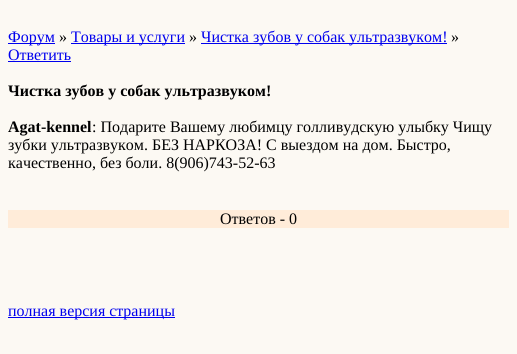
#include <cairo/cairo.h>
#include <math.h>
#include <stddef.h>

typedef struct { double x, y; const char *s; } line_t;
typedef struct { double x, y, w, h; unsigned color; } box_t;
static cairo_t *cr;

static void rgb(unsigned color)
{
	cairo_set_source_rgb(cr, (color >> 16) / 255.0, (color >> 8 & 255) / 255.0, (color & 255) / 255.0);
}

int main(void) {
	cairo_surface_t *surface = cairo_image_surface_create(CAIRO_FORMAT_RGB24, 517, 354);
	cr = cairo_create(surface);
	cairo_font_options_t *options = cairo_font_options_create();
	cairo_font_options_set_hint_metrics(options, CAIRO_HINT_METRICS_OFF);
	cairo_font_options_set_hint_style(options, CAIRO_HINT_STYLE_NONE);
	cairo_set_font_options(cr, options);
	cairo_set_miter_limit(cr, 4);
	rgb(0xfcf9f3);
	cairo_paint(cr);
	{
		static const box_t items[] = {
			{8, 43, 47, 1, 0x0000ee},
			{71, 43, 114, 1, 0x0000ee},
			{201, 43, 246, 1, 0x0000ee},
			{8, 61, 63, 1, 0x0000ee},
			{8, 210, 501, 18, 0xffecd9},
			{8, 317, 167, 1, 0x0000ee},
		};
		for (size_t i = 0; i < sizeof items / sizeof *items; i++) {
			rgb(items[i].color);
			cairo_rectangle(cr, items[i].x, items[i].y, items[i].w, items[i].h);
			cairo_fill(cr);
		}
	}
	cairo_select_font_face(cr, "Liberation Serif", CAIRO_FONT_SLANT_NORMAL, CAIRO_FONT_WEIGHT_NORMAL);
	cairo_set_font_size(cr, 16);
	cairo_move_to(cr, 8, 42);
	cairo_show_text(cr, "Форум");
	rgb(0x000000);
	cairo_move_to(cr, 59, 42);
	cairo_show_text(cr, "»");
	rgb(0x0000ee);
	cairo_move_to(cr, 71, 42);
	cairo_show_text(cr, "Товары и услуги");
	rgb(0x000000);
	cairo_move_to(cr, 189, 42);
	cairo_show_text(cr, "»");
	rgb(0x0000ee);
	cairo_move_to(cr, 201, 42);
	cairo_show_text(cr, "Чистка зубов у собак ультразвуком!");
	rgb(0x000000);
	cairo_move_to(cr, 451, 42);
	cairo_show_text(cr, "»");
	rgb(0x0000ee);
	cairo_move_to(cr, 8, 60);
	cairo_show_text(cr, "Ответить");
	cairo_select_font_face(cr, "Liberation Serif", CAIRO_FONT_SLANT_NORMAL, CAIRO_FONT_WEIGHT_BOLD);
	rgb(0x000000);
	cairo_move_to(cr, 8, 96);
	cairo_show_text(cr, "Чистка зубов у собак ультразвуком!");
	cairo_move_to(cr, 8, 132);
	cairo_show_text(cr, "Agat-kennel");
	cairo_select_font_face(cr, "Liberation Serif", CAIRO_FONT_SLANT_NORMAL, CAIRO_FONT_WEIGHT_NORMAL);
	{
		static const line_t items[] = {
			{92, 132, ": Подарите Вашему любимцу голливудскую улыбку Чищу"},
			{8, 150, "зубки ультразвуком. БЕЗ НАРКОЗА! С выездом на дом. Быстро,"},
			{8, 168, "качественно, без боли. 8(906)743-52-63"},
			{220, 224, "Ответов - 0"},
		};
		for (size_t i = 0; i < sizeof items / sizeof *items; i++) {
			cairo_move_to(cr, items[i].x, items[i].y);
			cairo_show_text(cr, items[i].s);
		}
	}
	rgb(0x0000ee);
	cairo_move_to(cr, 8, 316);
	cairo_show_text(cr, "полная версия страницы");
	cairo_surface_write_to_png(surface, "page.png");
	cairo_font_options_destroy(options);
	cairo_destroy(cr);
	cairo_surface_destroy(surface);
	return 0;
}
